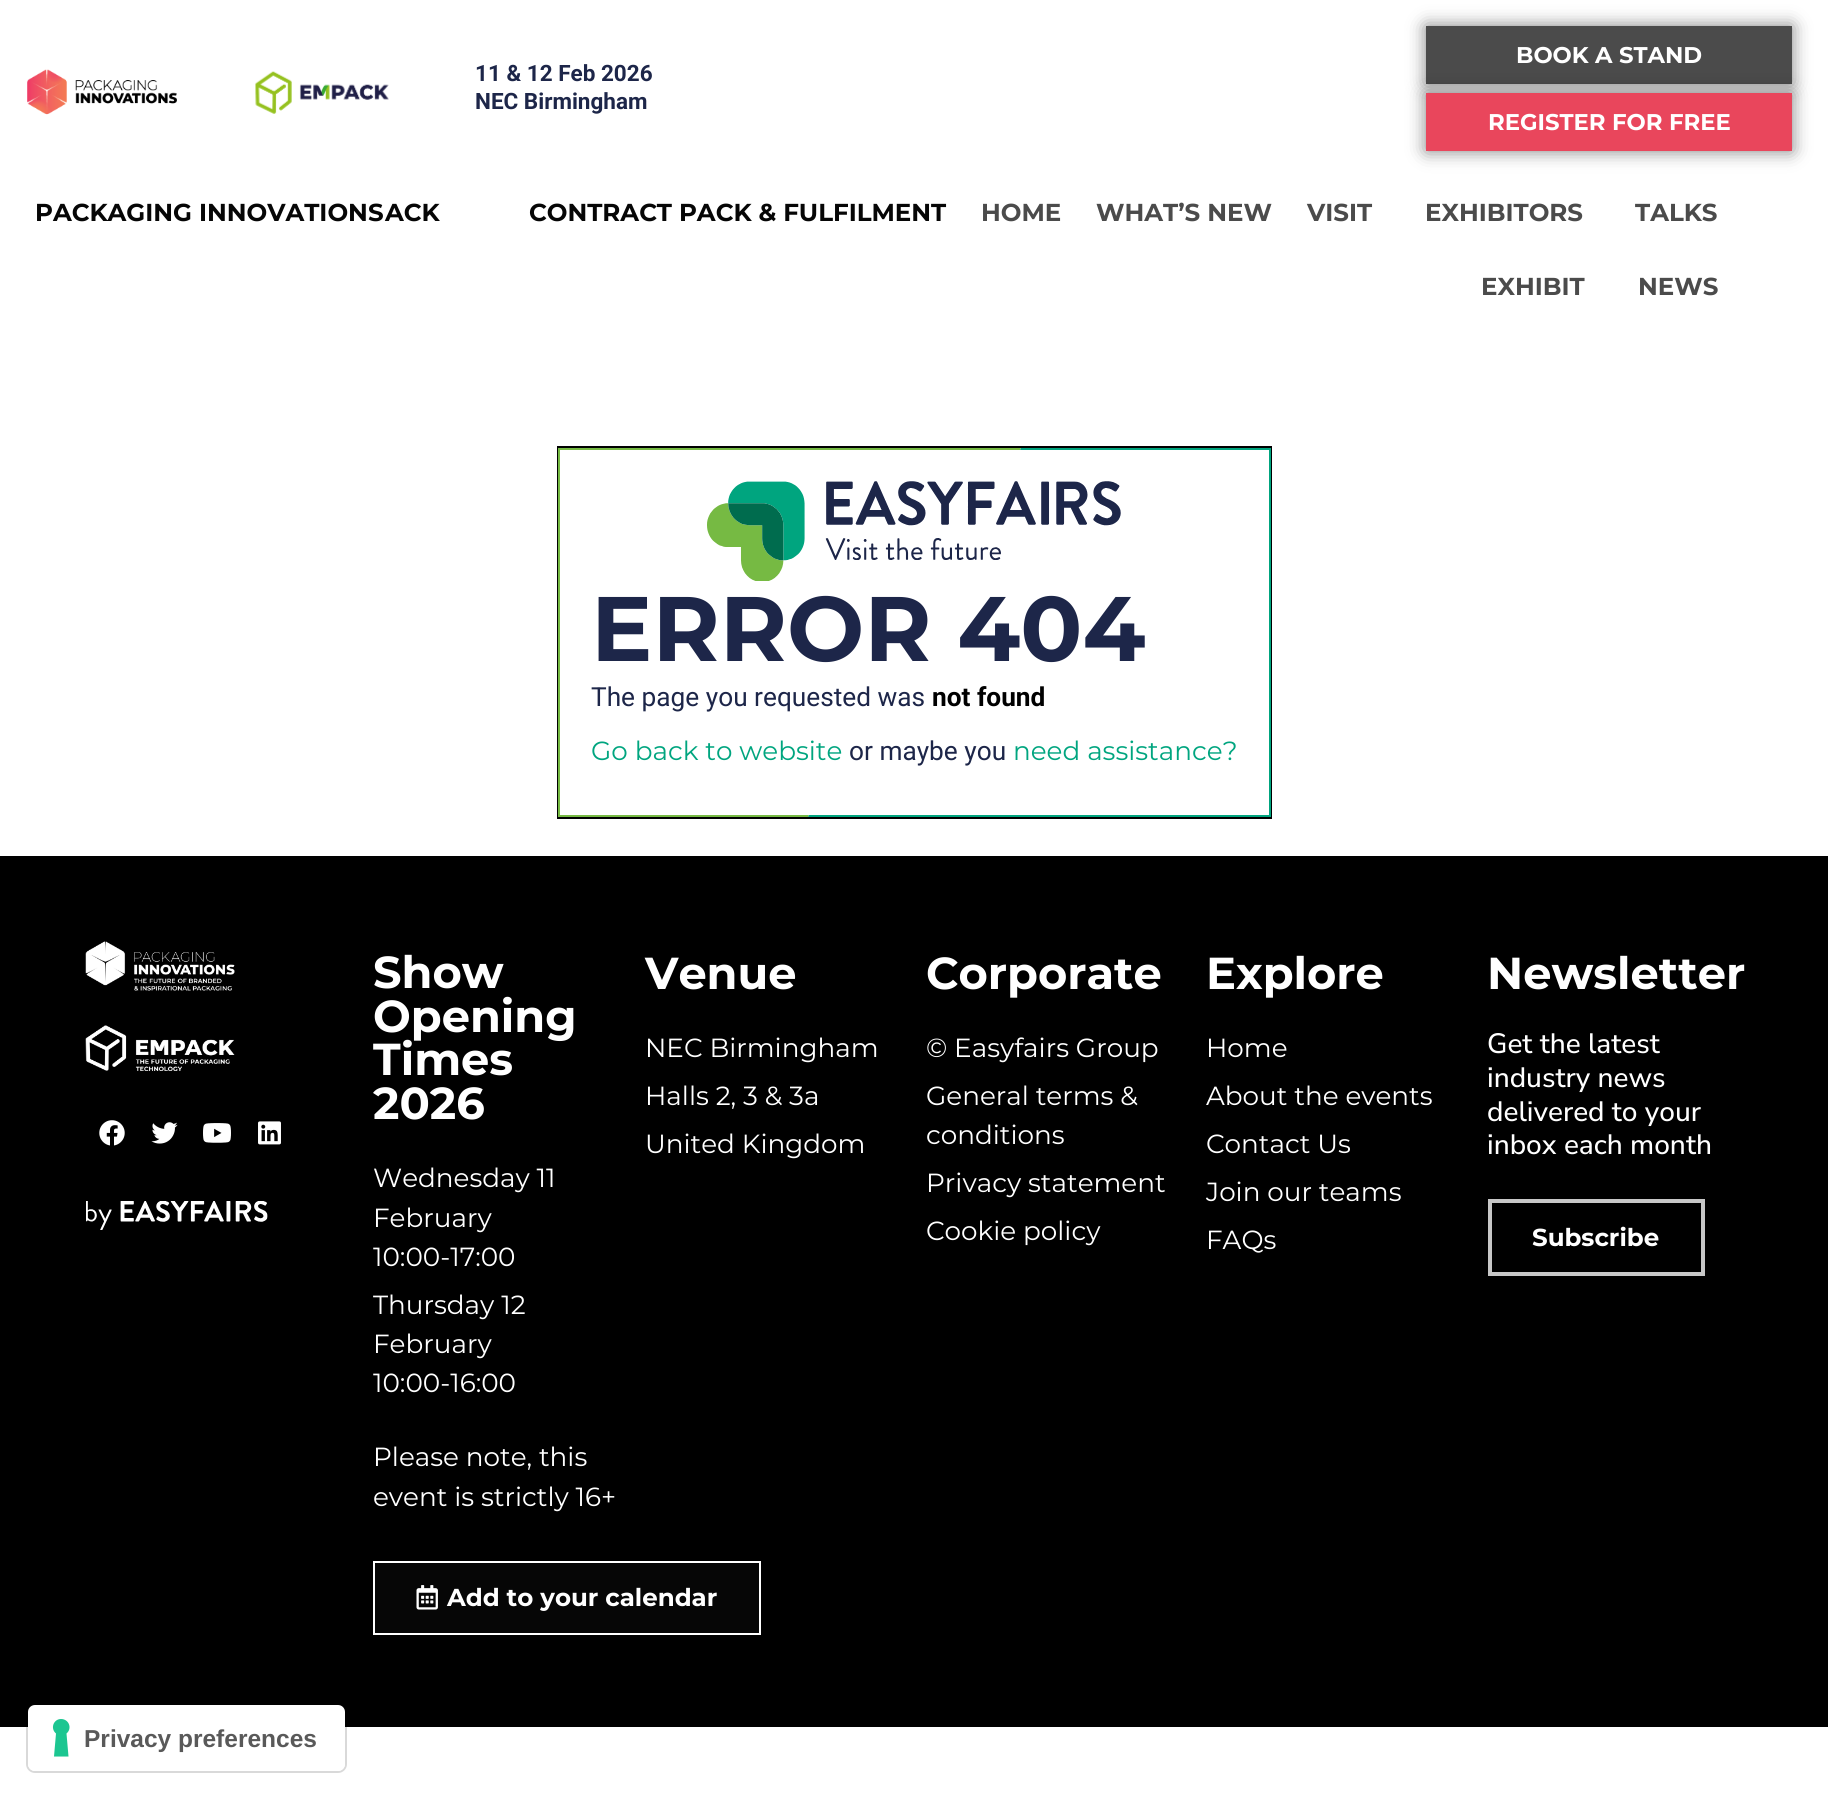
#include <cairo/cairo.h>
#include <math.h>
#include <stddef.h>

typedef struct { double x, y; const char *s; } line_t;
static cairo_t *cr;

static void rgb(unsigned color)
{
	cairo_set_source_rgb(cr, (color >> 16) / 255.0, (color >> 8 & 255) / 255.0, (color & 255) / 255.0);
}

static void rrect(double x, double y, double w, double h, double r)
{
	cairo_new_sub_path(cr);
	cairo_arc(cr, x + w - r, y + h - r, r, 0, M_PI / 2);
	cairo_arc(cr, x + r, y + h - r, r, M_PI / 2, M_PI);
	cairo_arc(cr, x + r, y + r, r, M_PI, 1.5 * M_PI);
	cairo_arc(cr, x + w - r, y + r, r, 1.5 * M_PI, 2 * M_PI);
	cairo_close_path(cr);
}

static void soft_shadow(double x, double y, double w, double h, double r, double blur, double alpha)
{
	cairo_push_group_with_content(cr, CAIRO_CONTENT_ALPHA);
	cairo_set_operator(cr, CAIRO_OPERATOR_SOURCE);
	for (int i = 15; i >= -15 && fmin(w, h) + blur * i / 3 > 0; i -= 2) {
		double e = blur * i / 6;
		cairo_set_source_rgba(cr, 0, 0, 0, alpha * erfc((i - 1) / 8.5) / 2);
		rrect(x - e, y - e, w + 2 * e, h + 2 * e, fmax(0, fmin(r + e + blur * .6, fmin(w, h) / 2 + e)));
		cairo_fill(cr);
	}
	cairo_pattern_t *soft = cairo_pop_group(cr);
	cairo_mask(cr, soft);
	cairo_pattern_destroy(soft);
}

static void image(const char *path, double x, double y, double w, double h)
{
	cairo_surface_t *image = cairo_image_surface_create_from_png(path);
	cairo_save(cr);
	cairo_set_source_surface(cr, image, x, y);
	cairo_rectangle(cr, x, y, w, h);
	cairo_fill(cr);
	cairo_restore(cr);
	cairo_surface_destroy(image);
}

int main(void) {
	cairo_surface_t *surface = cairo_image_surface_create(CAIRO_FORMAT_RGB24, 1828, 1798);
	cr = cairo_create(surface);
	cairo_font_options_t *options = cairo_font_options_create();
	cairo_font_options_set_hint_metrics(options, CAIRO_HINT_METRICS_OFF);
	cairo_font_options_set_hint_style(options, CAIRO_HINT_STYLE_NONE);
	cairo_set_font_options(cr, options);
	cairo_set_miter_limit(cr, 4);
	rgb(0xffffff);
	cairo_paint(cr);
	image("img/1.png", 27, 69, 150, 46);
	image("img/2.png", 255, 71, 134, 43);
	rgb(0x000000);
	soft_shadow(1426, 26, 366, 58, 0, 9, 0.5);
	rgb(0x4b4b4b);
	cairo_rectangle(cr, 1426, 26, 366, 58);
	cairo_fill(cr);
	rgb(0x000000);
	soft_shadow(1426, 93, 366, 58, 0, 9, 0.5);
	rgb(0xe9465c);
	cairo_rectangle(cr, 1426, 93, 366, 58);
	cairo_fill(cr);
	image("img/3.png", 707, 481, 414, 100);
	cairo_rectangle(cr, 558, 447, 713, 371);
	rgb(0x000000);
	cairo_stroke(cr);
	rgb(0x76ba43);
	cairo_new_path(cr);
	cairo_move_to(cr, 560, 450);
	cairo_line_to(cr, 560, 815);
	cairo_line_to(cr, 809, 815);
	cairo_line_to(cr, 808, 817);
	cairo_line_to(cr, 558, 817);
	cairo_line_to(cr, 558, 448);
	cairo_line_to(cr, 1021, 448);
	cairo_line_to(cr, 1020, 450);
	cairo_close_path(cr);
	cairo_fill(cr);
	rgb(0x00a57f);
	cairo_new_path(cr);
	cairo_move_to(cr, 1021, 448);
	cairo_line_to(cr, 1271, 448);
	cairo_line_to(cr, 1271, 817);
	cairo_line_to(cr, 808, 817);
	cairo_line_to(cr, 809, 815);
	cairo_line_to(cr, 1269, 815);
	cairo_line_to(cr, 1269, 450);
	cairo_line_to(cr, 1020, 450);
	cairo_close_path(cr);
	cairo_fill(cr);
	rgb(0x000000);
	cairo_rectangle(cr, 0, 856, 1828, 871);
	cairo_fill(cr);
	image("img/4.png", 85, 941, 150, 50);
	image("img/5.png", 85, 1025, 150, 46);
	image("img/6.png", 99, 1120, 26, 26);
	image("img/7.png", 151, 1122, 27, 22);
	image("img/8.png", 203, 1123, 28, 20);
	image("img/9.png", 258, 1121, 23, 24);
	image("img/10.png", 86, 1201, 182, 29);
	rgb(0x060606);
	cairo_rectangle(cr, 374, 1562, 386, 72);
	cairo_fill_preserve(cr);
	rgb(0xffffff);
	cairo_stroke(cr);
	image("img/11.png", 416, 1585, 22, 25);
	cairo_rectangle(cr, 1490, 1201, 213, 73);
	rgb(0xc7c7c7);
	cairo_set_line_width(cr, 4);
	cairo_stroke(cr);
	rrect(27, 1704, 319, 68, 8);
	cairo_set_source_rgba(cr, 0, 0, 0, 0.15);
	cairo_set_line_width(cr, 2);
	cairo_stroke(cr);
	rgb(0xffffff);
	rrect(28, 1705, 317, 66, 7);
	cairo_fill(cr);
	rgb(0x1cc691);
	cairo_set_fill_rule(cr, CAIRO_FILL_RULE_EVEN_ODD);
	cairo_new_path(cr);
	cairo_move_to(cr, 61, 1719);
	cairo_curve_to(cr, 69, 1719, 72.5, 1728.5, 66.5, 1733.5);
	cairo_line_to(cr, 68.5, 1756.5);
	cairo_line_to(cr, 54, 1756.5);
	cairo_line_to(cr, 56, 1733.5);
	cairo_curve_to(cr, 50, 1728.5, 53.5, 1719, 61, 1719);
	cairo_close_path(cr);
	cairo_fill(cr);
	cairo_select_font_face(cr, "Roboto", CAIRO_FONT_SLANT_NORMAL, CAIRO_FONT_WEIGHT_BOLD);
	cairo_set_font_size(cr, 22.5);
	rgb(0x1d2649);
	cairo_move_to(cr, 475, 81);
	cairo_show_text(cr, "11 & 12 Feb 2026");
	cairo_move_to(cr, 475, 109);
	cairo_show_text(cr, "NEC Birmingham");
	cairo_select_font_face(cr, "Montserrat", CAIRO_FONT_SLANT_NORMAL, CAIRO_FONT_WEIGHT_BOLD);
	cairo_set_font_size(cr, 22.75);
	rgb(0xffffff);
	cairo_move_to(cr, 1516, 63);
	cairo_show_text(cr, "BOOK A STAND");
	cairo_move_to(cr, 1488, 130);
	cairo_show_text(cr, "REGISTER FOR FREE");
	cairo_set_font_size(cr, 24.5);
	rgb(0x060606);
	{
		static const line_t items[] = {
			{35, 221, "PACKAGING INNOVATIONS"},
			{385, 221, "ACK"},
			{529, 221, "CONTRACT PACK & FULFILMENT"},
		};
		for (size_t i = 0; i < sizeof items / sizeof *items; i++) {
			cairo_move_to(cr, items[i].x, items[i].y);
			cairo_show_text(cr, items[i].s);
		}
	}
	rgb(0x4b4b4b);
	{
		static const line_t items[] = {
			{981, 221, "HOME"},
			{1096, 221, "WHAT’S NEW"},
			{1307, 221, "VISIT"},
			{1425, 221, "EXHIBITORS"},
			{1635, 221, "TALKS"},
			{1481, 295, "EXHIBIT"},
			{1638, 295, "NEWS"},
		};
		for (size_t i = 0; i < sizeof items / sizeof *items; i++) {
			cairo_move_to(cr, items[i].x, items[i].y);
			cairo_show_text(cr, items[i].s);
		}
	}
	cairo_set_font_size(cr, 91.5);
	rgb(0x1d2649);
	cairo_move_to(cr, 591, 661);
	cairo_show_text(cr, "ERROR 404");
	cairo_select_font_face(cr, "Roboto", CAIRO_FONT_SLANT_NORMAL, CAIRO_FONT_WEIGHT_NORMAL);
	cairo_set_font_size(cr, 26.25);
	cairo_move_to(cr, 591, 706);
	cairo_show_text(cr, "The page you requested was");
	cairo_select_font_face(cr, "Roboto", CAIRO_FONT_SLANT_NORMAL, CAIRO_FONT_WEIGHT_BOLD);
	rgb(0x000000);
	cairo_move_to(cr, 932, 706);
	cairo_show_text(cr, "not found");
	cairo_select_font_face(cr, "Montserrat", CAIRO_FONT_SLANT_NORMAL, CAIRO_FONT_WEIGHT_NORMAL);
	rgb(0x00a57f);
	cairo_move_to(cr, 591, 760);
	cairo_show_text(cr, "Go back to website");
	cairo_select_font_face(cr, "Roboto", CAIRO_FONT_SLANT_NORMAL, CAIRO_FONT_WEIGHT_NORMAL);
	rgb(0x1d2649);
	cairo_move_to(cr, 849, 760);
	cairo_show_text(cr, "or maybe you");
	cairo_select_font_face(cr, "Montserrat", CAIRO_FONT_SLANT_NORMAL, CAIRO_FONT_WEIGHT_NORMAL);
	rgb(0x00a57f);
	cairo_move_to(cr, 1013, 760);
	cairo_show_text(cr, "need assistance?");
	cairo_select_font_face(cr, "Montserrat", CAIRO_FONT_SLANT_NORMAL, CAIRO_FONT_WEIGHT_BOLD);
	cairo_set_font_size(cr, 44.75);
	rgb(0xffffff);
	{
		static const line_t items[] = {
			{373, 988, "Show"},
			{373, 1032, "Opening"},
			{373, 1075, "Times"},
			{373, 1119, "2026"},
		};
		for (size_t i = 0; i < sizeof items / sizeof *items; i++) {
			cairo_move_to(cr, items[i].x, items[i].y);
			cairo_show_text(cr, items[i].s);
		}
	}
	cairo_select_font_face(cr, "Montserrat", CAIRO_FONT_SLANT_NORMAL, CAIRO_FONT_WEIGHT_NORMAL);
	cairo_set_font_size(cr, 26.25);
	{
		static const line_t items[] = {
			{373, 1187, "Wednesday 11"},
			{373, 1227, "February"},
			{373, 1266, "10:00-17:00"},
			{373, 1314, "Thursday 12"},
			{373, 1353, "February"},
			{373, 1392, "10:00-16:00"},
			{373, 1466, "Please note, this"},
			{373, 1506, "event is strictly 16+"},
		};
		for (size_t i = 0; i < sizeof items / sizeof *items; i++) {
			cairo_move_to(cr, items[i].x, items[i].y);
			cairo_show_text(cr, items[i].s);
		}
	}
	cairo_select_font_face(cr, "Montserrat", CAIRO_FONT_SLANT_NORMAL, CAIRO_FONT_WEIGHT_BOLD);
	cairo_set_font_size(cr, 24.5);
	cairo_move_to(cr, 447, 1606);
	cairo_show_text(cr, "Add to your calendar");
	cairo_set_font_size(cr, 44.75);
	cairo_move_to(cr, 645, 989);
	cairo_show_text(cr, "Venue");
	cairo_select_font_face(cr, "Montserrat", CAIRO_FONT_SLANT_NORMAL, CAIRO_FONT_WEIGHT_NORMAL);
	cairo_set_font_size(cr, 26.25);
	{
		static const line_t items[] = {
			{645, 1057, "NEC Birmingham"},
			{645, 1105, "Halls 2, 3 & 3a"},
			{645, 1153, "United Kingdom"},
		};
		for (size_t i = 0; i < sizeof items / sizeof *items; i++) {
			cairo_move_to(cr, items[i].x, items[i].y);
			cairo_show_text(cr, items[i].s);
		}
	}
	cairo_select_font_face(cr, "Montserrat", CAIRO_FONT_SLANT_NORMAL, CAIRO_FONT_WEIGHT_BOLD);
	cairo_set_font_size(cr, 44.75);
	cairo_move_to(cr, 926, 989);
	cairo_show_text(cr, "Corporate");
	cairo_select_font_face(cr, "Montserrat", CAIRO_FONT_SLANT_NORMAL, CAIRO_FONT_WEIGHT_NORMAL);
	cairo_set_font_size(cr, 26.25);
	{
		static const line_t items[] = {
			{926, 1057, "© Easyfairs Group"},
			{926, 1105, "General terms &"},
			{926, 1144, "conditions"},
			{926, 1192, "Privacy statement"},
			{926, 1240, "Cookie policy"},
		};
		for (size_t i = 0; i < sizeof items / sizeof *items; i++) {
			cairo_move_to(cr, items[i].x, items[i].y);
			cairo_show_text(cr, items[i].s);
		}
	}
	cairo_select_font_face(cr, "Montserrat", CAIRO_FONT_SLANT_NORMAL, CAIRO_FONT_WEIGHT_BOLD);
	cairo_set_font_size(cr, 44.75);
	cairo_move_to(cr, 1206, 989);
	cairo_show_text(cr, "Explore");
	cairo_select_font_face(cr, "Montserrat", CAIRO_FONT_SLANT_NORMAL, CAIRO_FONT_WEIGHT_NORMAL);
	cairo_set_font_size(cr, 26.25);
	{
		static const line_t items[] = {
			{1206, 1057, "Home"},
			{1206, 1105, "About the events"},
			{1206, 1153, "Contact Us"},
			{1206, 1201, "Join our teams"},
			{1206, 1249, "FAQs"},
		};
		for (size_t i = 0; i < sizeof items / sizeof *items; i++) {
			cairo_move_to(cr, items[i].x, items[i].y);
			cairo_show_text(cr, items[i].s);
		}
	}
	cairo_select_font_face(cr, "Montserrat", CAIRO_FONT_SLANT_NORMAL, CAIRO_FONT_WEIGHT_BOLD);
	cairo_set_font_size(cr, 44.75);
	cairo_move_to(cr, 1487, 989);
	cairo_show_text(cr, "Newsletter");
	cairo_select_font_face(cr, "Nunito Sans Medium", CAIRO_FONT_SLANT_NORMAL, CAIRO_FONT_WEIGHT_NORMAL);
	cairo_set_font_size(cr, 28);
	{
		static const line_t items[] = {
			{1487, 1053, "Get the latest"},
			{1487, 1087, "industry news"},
			{1487, 1121, "delivered to your"},
			{1487, 1154, "inbox each month"},
		};
		for (size_t i = 0; i < sizeof items / sizeof *items; i++) {
			cairo_move_to(cr, items[i].x, items[i].y);
			cairo_show_text(cr, items[i].s);
		}
	}
	cairo_select_font_face(cr, "Montserrat", CAIRO_FONT_SLANT_NORMAL, CAIRO_FONT_WEIGHT_BOLD);
	cairo_set_font_size(cr, 24.5);
	cairo_move_to(cr, 1532, 1246);
	cairo_show_text(cr, "Subscribe");
	cairo_select_font_face(cr, "Liberation Sans", CAIRO_FONT_SLANT_NORMAL, CAIRO_FONT_WEIGHT_BOLD);
	rgb(0x595959);
	cairo_move_to(cr, 84, 1747);
	cairo_show_text(cr, "Privacy preferences");
	cairo_surface_write_to_png(surface, "page.png");
	cairo_font_options_destroy(options);
	cairo_destroy(cr);
	cairo_surface_destroy(surface);
	return 0;
}
